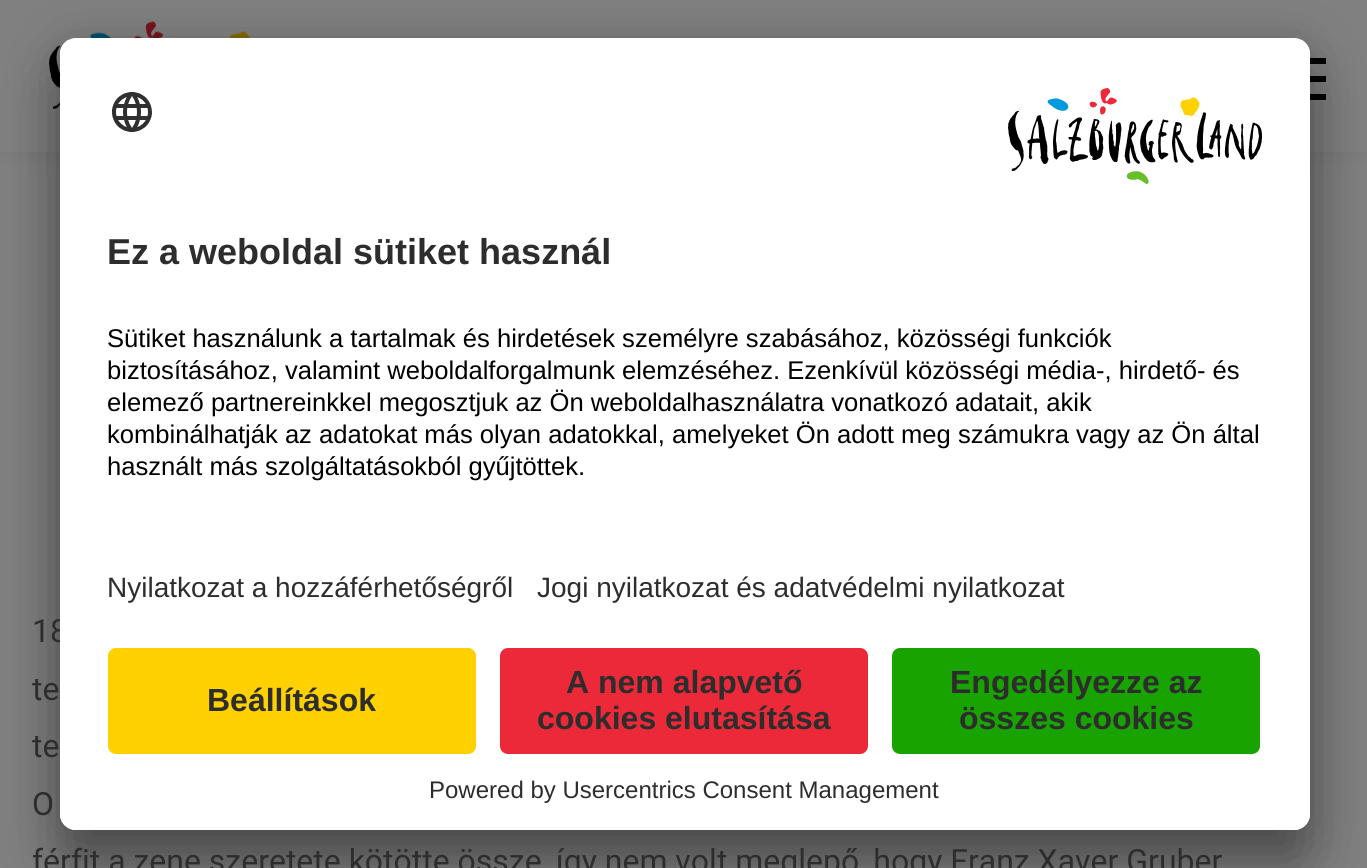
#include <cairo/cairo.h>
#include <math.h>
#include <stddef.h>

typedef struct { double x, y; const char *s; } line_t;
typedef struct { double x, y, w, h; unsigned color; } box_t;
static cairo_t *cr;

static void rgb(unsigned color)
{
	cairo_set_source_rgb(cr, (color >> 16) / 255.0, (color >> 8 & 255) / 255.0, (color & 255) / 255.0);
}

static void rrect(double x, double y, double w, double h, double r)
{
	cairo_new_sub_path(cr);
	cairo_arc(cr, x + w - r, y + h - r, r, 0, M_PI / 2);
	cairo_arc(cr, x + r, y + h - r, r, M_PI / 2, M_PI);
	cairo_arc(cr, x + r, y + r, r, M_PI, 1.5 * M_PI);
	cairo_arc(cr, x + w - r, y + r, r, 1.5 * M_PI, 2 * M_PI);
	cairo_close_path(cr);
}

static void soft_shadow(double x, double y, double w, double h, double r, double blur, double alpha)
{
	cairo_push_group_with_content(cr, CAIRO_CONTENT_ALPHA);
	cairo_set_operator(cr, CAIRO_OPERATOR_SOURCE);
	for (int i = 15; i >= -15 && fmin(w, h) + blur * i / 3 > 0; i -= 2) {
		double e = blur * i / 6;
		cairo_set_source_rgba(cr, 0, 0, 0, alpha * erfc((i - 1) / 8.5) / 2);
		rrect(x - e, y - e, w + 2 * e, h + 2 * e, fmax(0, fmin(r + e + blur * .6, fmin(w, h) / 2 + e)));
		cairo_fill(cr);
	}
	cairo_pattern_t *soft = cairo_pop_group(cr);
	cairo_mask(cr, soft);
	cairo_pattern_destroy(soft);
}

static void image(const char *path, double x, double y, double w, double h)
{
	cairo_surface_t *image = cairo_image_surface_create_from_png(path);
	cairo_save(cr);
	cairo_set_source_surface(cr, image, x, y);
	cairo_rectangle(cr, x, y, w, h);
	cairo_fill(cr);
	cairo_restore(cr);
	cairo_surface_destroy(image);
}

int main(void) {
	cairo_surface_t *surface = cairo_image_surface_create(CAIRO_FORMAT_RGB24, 1367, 868);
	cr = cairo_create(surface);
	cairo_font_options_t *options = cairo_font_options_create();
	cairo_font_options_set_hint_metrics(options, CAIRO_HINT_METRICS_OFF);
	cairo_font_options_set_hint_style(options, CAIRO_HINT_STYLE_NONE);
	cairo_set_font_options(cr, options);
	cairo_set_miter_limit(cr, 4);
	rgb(0x808080);
	cairo_paint(cr);
	rgb(0x000000);
	soft_shadow(0, 0, 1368, 148, 0, 15, 0.1);
	rgb(0x808080);
	cairo_rectangle(cr, 0, 0, 1367, 152);
	cairo_fill(cr);
	image("img/1.png", 49, 21, 201, 88);
	{
		static const box_t items[] = {
			{1310, 58, 16, 6, 0x000000},
			{1310, 76, 16, 6, 0x000000},
			{1310, 94, 16, 6, 0x000000},
		};
		for (size_t i = 0; i < sizeof items / sizeof *items; i++) {
			rgb(items[i].color);
			cairo_rectangle(cr, items[i].x, items[i].y, items[i].w, items[i].h);
			cairo_fill(cr);
		}
	}
	rgb(0x000000);
	soft_shadow(60, 78, 1250, 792, 16, 28, 0.3);
	soft_shadow(60, 48, 1250, 792, 16, 26, 0.22);
	cairo_select_font_face(cr, "Roboto", CAIRO_FONT_SLANT_NORMAL, CAIRO_FONT_WEIGHT_NORMAL);
	cairo_set_font_size(cr, 32);
	rgb(0x2d2d2d);
	cairo_move_to(cr, 32, 642);
	cairo_show_text(cr, "18");
	rgb(0xffffff);
	rrect(60, 38, 1250, 792, 16);
	cairo_fill(cr);
	cairo_save(cr);
	rrect(60, 38, 1250, 792, 16);
	cairo_clip(cr);
	cairo_new_path(cr);
	cairo_move_to(cr, 76, 38);
	cairo_line_to(cr, 1294, 38);
	cairo_curve_to(cr, 1303, 38, 1310, 45, 1310, 54);
	cairo_line_to(cr, 1310, 632);
	cairo_line_to(cr, 60, 632);
	cairo_line_to(cr, 60, 54);
	cairo_curve_to(cr, 60, 45, 67, 38, 76, 38);
	cairo_close_path(cr);
	cairo_clip(cr);
	cairo_rectangle(cr, 60, 40, 1250, 592);
	cairo_fill(cr);
	cairo_restore(cr);
	image("img/2.png", 112, 92, 40, 40);
	cairo_select_font_face(cr, "Liberation Sans", CAIRO_FONT_SLANT_NORMAL, CAIRO_FONT_WEIGHT_NORMAL);
	cairo_set_font_size(cr, 28);
	rgb(0x2d2d2d);
	cairo_move_to(cr, 537, 597);
	cairo_show_text(cr, "Jogi nyilatkozat és adatvédelmi nyilatkozat");
	cairo_move_to(cr, 107, 597);
	cairo_show_text(cr, "Nyilatkozat a hozzáférhetőségről");
	image("img/3.png", 1008, 88, 254, 96);
	cairo_set_font_size(cr, 25.6);
	rgb(0x000000);
	{
		static const line_t items[] = {
			{107, 475, "használt más szolgáltatásokból gyűjtöttek."},
			{107, 443, "kombinálhatják az adatokat más olyan adatokkal, amelyeket Ön adott meg számukra vagy az Ön által"},
			{107, 411, "elemező partnereinkkel megosztjuk az Ön weboldalhasználatra vonatkozó adatait, akik"},
			{107, 379, "biztosításához, valamint weboldalforgalmunk elemzéséhez. Ezenkívül közösségi média-, hirdető- és"},
			{107, 347, "Sütiket használunk a tartalmak és hirdetések személyre szabásához, közösségi funkciók"},
		};
		for (size_t i = 0; i < sizeof items / sizeof *items; i++) {
			cairo_move_to(cr, items[i].x, items[i].y);
			cairo_show_text(cr, items[i].s);
		}
	}
	cairo_select_font_face(cr, "Liberation Sans", CAIRO_FONT_SLANT_NORMAL, CAIRO_FONT_WEIGHT_BOLD);
	cairo_set_font_size(cr, 36);
	rgb(0x2d2d2d);
	cairo_move_to(cr, 107, 264);
	cairo_show_text(cr, "Ez a weboldal sütiket használ");
	rgb(0xffffff);
	cairo_new_path(cr);
	cairo_move_to(cr, 60, 632);
	cairo_line_to(cr, 1310, 632);
	cairo_line_to(cr, 1310, 814);
	cairo_curve_to(cr, 1310, 823, 1303, 830, 1294, 830);
	cairo_line_to(cr, 76, 830);
	cairo_curve_to(cr, 67, 830, 60, 823, 60, 814);
	cairo_close_path(cr);
	cairo_fill(cr);
	cairo_select_font_face(cr, "Liberation Sans", CAIRO_FONT_SLANT_NORMAL, CAIRO_FONT_WEIGHT_NORMAL);
	cairo_set_font_size(cr, 24);
	rgb(0x2d2d2d);
	cairo_move_to(cr, 429, 798);
	cairo_show_text(cr, "Powered by Usercentrics Consent Management");
	rgb(0x18a300);
	rrect(892, 648, 368, 106, 8);
	cairo_fill(cr);
	cairo_select_font_face(cr, "Liberation Sans", CAIRO_FONT_SLANT_NORMAL, CAIRO_FONT_WEIGHT_BOLD);
	cairo_set_font_size(cr, 32);
	rgb(0x2d2d2d);
	cairo_move_to(cr, 959, 729);
	cairo_show_text(cr, "összes cookies");
	cairo_move_to(cr, 950, 693);
	cairo_show_text(cr, "Engedélyezze az");
	rgb(0xeb2938);
	rrect(500, 648, 368, 106, 8);
	cairo_fill(cr);
	rgb(0x2d2d2d);
	cairo_move_to(cr, 537, 729);
	cairo_show_text(cr, "cookies elutasítása");
	cairo_move_to(cr, 566, 693);
	cairo_show_text(cr, "A nem alapvető");
	rgb(0xffd100);
	rrect(108, 648, 368, 106, 8);
	cairo_fill(cr);
	rgb(0x2d2d2d);
	cairo_move_to(cr, 207, 711);
	cairo_show_text(cr, "Beállítások");
	cairo_select_font_face(cr, "Roboto", CAIRO_FONT_SLANT_NORMAL, CAIRO_FONT_WEIGHT_NORMAL);
	{
		static const line_t items[] = {
			{32, 700, "te"},
			{32, 757, "te"},
			{32, 815, "O"},
			{32, 872, "férfit a zene szeretete kötötte össze, így nem volt meglepő, hogy Franz Xaver Gruber"},
		};
		for (size_t i = 0; i < sizeof items / sizeof *items; i++) {
			cairo_move_to(cr, items[i].x, items[i].y);
			cairo_show_text(cr, items[i].s);
		}
	}
	cairo_surface_write_to_png(surface, "page.png");
	cairo_font_options_destroy(options);
	cairo_destroy(cr);
	cairo_surface_destroy(surface);
	return 0;
}
